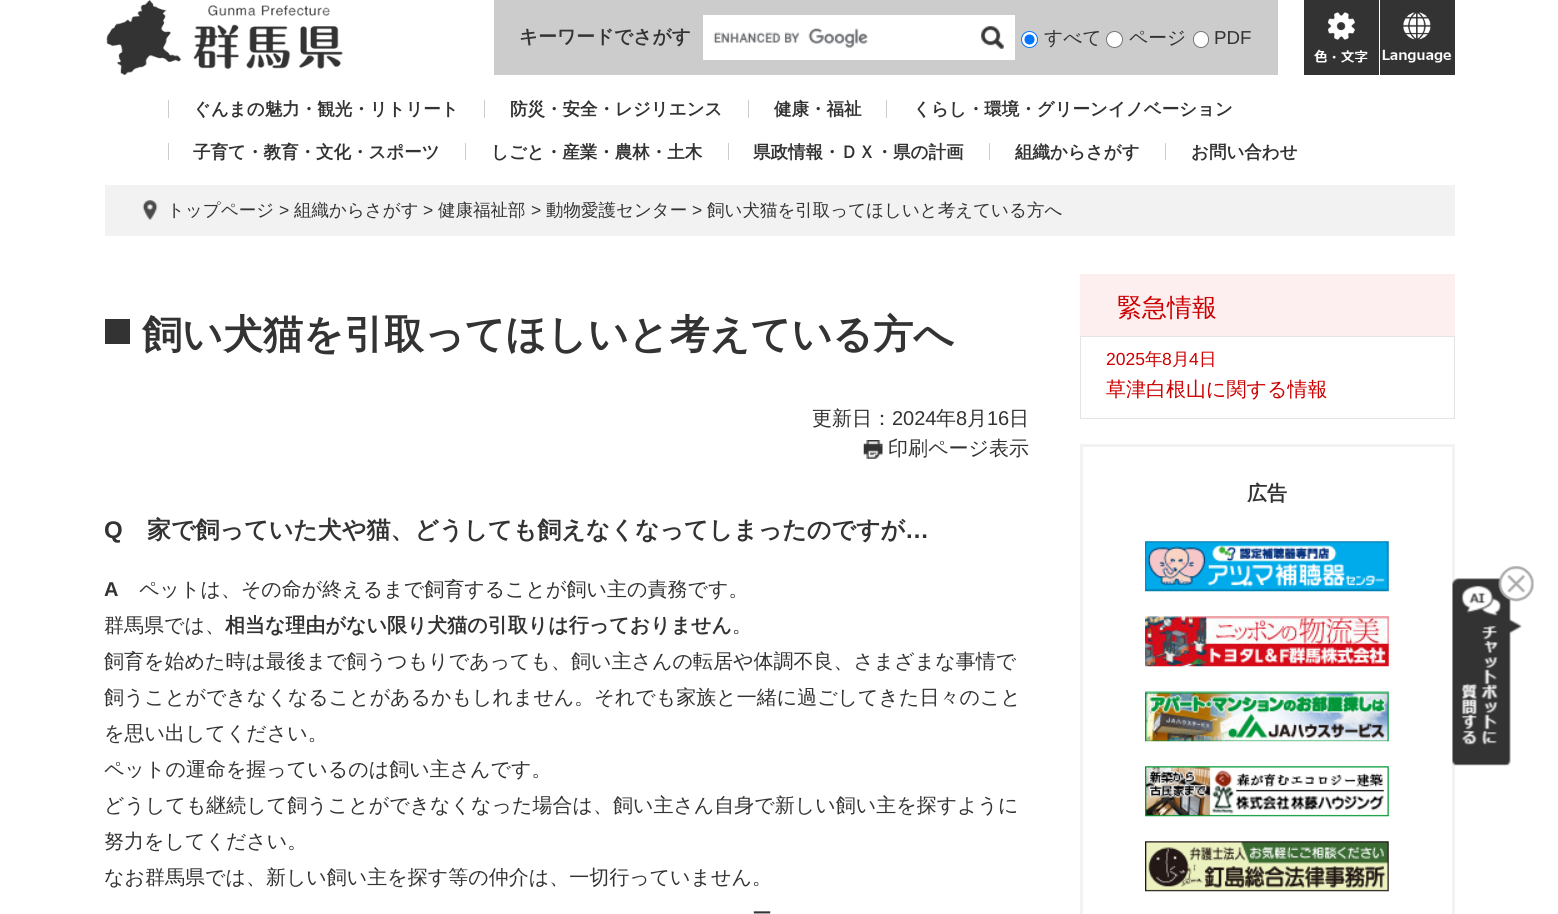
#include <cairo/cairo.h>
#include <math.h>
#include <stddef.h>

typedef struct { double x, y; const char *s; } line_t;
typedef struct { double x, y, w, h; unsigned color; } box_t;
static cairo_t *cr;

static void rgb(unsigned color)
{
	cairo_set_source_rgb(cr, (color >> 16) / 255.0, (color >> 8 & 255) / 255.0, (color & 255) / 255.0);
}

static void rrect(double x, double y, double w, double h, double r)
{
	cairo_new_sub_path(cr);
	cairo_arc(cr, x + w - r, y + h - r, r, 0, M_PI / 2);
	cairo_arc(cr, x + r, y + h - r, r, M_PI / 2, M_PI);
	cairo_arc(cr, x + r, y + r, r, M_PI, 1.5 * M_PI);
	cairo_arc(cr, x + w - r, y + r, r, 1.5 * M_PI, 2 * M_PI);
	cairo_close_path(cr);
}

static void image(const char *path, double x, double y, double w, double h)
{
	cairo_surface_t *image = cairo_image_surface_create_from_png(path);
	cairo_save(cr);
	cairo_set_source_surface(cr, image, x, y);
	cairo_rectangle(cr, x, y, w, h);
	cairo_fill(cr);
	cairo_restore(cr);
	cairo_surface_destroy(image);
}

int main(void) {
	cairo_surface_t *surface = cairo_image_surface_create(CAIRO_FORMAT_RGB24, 1558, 914);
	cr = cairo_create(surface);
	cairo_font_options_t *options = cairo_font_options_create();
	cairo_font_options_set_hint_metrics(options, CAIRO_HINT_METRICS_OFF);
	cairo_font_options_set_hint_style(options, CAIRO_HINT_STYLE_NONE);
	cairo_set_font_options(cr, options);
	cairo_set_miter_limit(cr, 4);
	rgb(0xffffff);
	cairo_paint(cr);
	image("img/1.png", 106, 0, 237, 75);
	rgb(0xcccccc);
	cairo_rectangle(cr, 494, 0, 784, 75);
	cairo_fill(cr);
	rgb(0xffffff);
	cairo_rectangle(cr, 703, 15, 312, 45);
	cairo_fill(cr);
	image("img/2.png", 713, 28, 155, 20);
	image("img/3.png", 981, 26, 23, 23);
	cairo_arc(cr, 1029.5, 39.5, 8, 0, 2 * M_PI);
	cairo_fill_preserve(cr);
	rgb(0x0075ff);
	cairo_set_line_width(cr, 1);
	cairo_stroke(cr);
	cairo_arc(cr, 1029.5, 39.5, 5, 0, 2 * M_PI);
	cairo_fill(cr);
	rgb(0xffffff);
	cairo_arc(cr, 1114.5, 39.5, 8, 0, 2 * M_PI);
	cairo_fill_preserve(cr);
	rgb(0x767676);
	cairo_stroke(cr);
	rgb(0xffffff);
	rrect(1193.5, 31.5, 15, 16, 7.5);
	cairo_fill_preserve(cr);
	rgb(0x767676);
	cairo_stroke(cr);
	rgb(0x333333);
	cairo_rectangle(cr, 1304, 0, 75, 75);
	cairo_fill(cr);
	image("img/4.png", 1313, 12, 55, 51);
	cairo_rectangle(cr, 1380, 0, 75, 75);
	cairo_fill(cr);
	image("img/5.png", 1382, 12, 70, 51);
	{
		static const box_t items[] = {
			{168, 100, 1, 18, 0xcccccc},
			{484, 100, 1, 18, 0xcccccc},
			{748, 100, 1, 18, 0xcccccc},
			{886, 100, 1, 18, 0xcccccc},
			{168, 143, 1, 17, 0xcccccc},
			{465, 143, 1, 17, 0xcccccc},
			{728, 143, 1, 17, 0xcccccc},
			{989, 143, 1, 17, 0xcccccc},
			{1165, 143, 1, 17, 0xcccccc},
			{105, 185, 1350, 51, 0xf2f2f2},
		};
		for (size_t i = 0; i < sizeof items / sizeof *items; i++) {
			rgb(items[i].color);
			cairo_rectangle(cr, items[i].x, items[i].y, items[i].w, items[i].h);
			cairo_fill(cr);
		}
	}
	image("img/6.png", 142, 200, 16, 20);
	rgb(0x333333);
	cairo_rectangle(cr, 105, 319, 25, 25);
	cairo_fill(cr);
	image("img/7.png", 863, 440, 20, 19);
	rgb(0xfdefef);
	cairo_rectangle(cr, 1080, 274, 375, 62);
	cairo_fill(cr);
	cairo_rectangle(cr, 1080.5, 336.5, 374, 82);
	rgb(0xe5e3e3);
	cairo_stroke(cr);
	cairo_rectangle(cr, 1081.5, 445.5, 372, 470);
	rgb(0xf2f2f2);
	cairo_set_line_width(cr, 3);
	cairo_stroke(cr);
	image("img/8.png", 1145, 541, 244, 51);
	image("img/9.png", 1145, 616, 244, 51);
	image("img/10.png", 1145, 691, 244, 51);
	image("img/11.png", 1145, 766, 244, 51);
	image("img/12.png", 1145, 841, 244, 51);
	image("img/13.png", 1452, 566, 82, 200);
	cairo_select_font_face(cr, "WenQuanYi Zen Hei", CAIRO_FONT_SLANT_NORMAL, CAIRO_FONT_WEIGHT_BOLD);
	cairo_set_font_size(cr, 18.75);
	rgb(0x333333);
	cairo_move_to(cr, 519, 43);
	cairo_show_text(cr, "キーワードでさがす");
	cairo_select_font_face(cr, "WenQuanYi Zen Hei Medium", CAIRO_FONT_SLANT_NORMAL, CAIRO_FONT_WEIGHT_NORMAL);
	cairo_move_to(cr, 1044, 44);
	cairo_show_text(cr, "すべて");
	cairo_move_to(cr, 1129, 44);
	cairo_show_text(cr, "ページ");
	cairo_select_font_face(cr, "Liberation Sans", CAIRO_FONT_SLANT_NORMAL, CAIRO_FONT_WEIGHT_NORMAL);
	cairo_move_to(cr, 1214, 44);
	cairo_show_text(cr, "PDF");
	cairo_select_font_face(cr, "WenQuanYi Zen Hei", CAIRO_FONT_SLANT_NORMAL, CAIRO_FONT_WEIGHT_BOLD);
	cairo_set_font_size(cr, 17.5);
	{
		static const line_t items[] = {
			{193, 115, "ぐんまの魅力・観光・リトリート"},
			{510, 115, "防災・安全・レジリエンス"},
			{774, 115, "健康・福祉"},
			{913, 115, "くらし・環境・グリーンイノベーション"},
			{193, 158, "子育て・教育・文化・スポーツ"},
			{491, 158, "しごと・産業・農林・土木"},
			{753, 158, "県政情報・ＤＸ・県の計画"},
			{1015, 158, "組織からさがす"},
			{1191, 158, "お問い合わせ"},
		};
		for (size_t i = 0; i < sizeof items / sizeof *items; i++) {
			cairo_move_to(cr, items[i].x, items[i].y);
			cairo_show_text(cr, items[i].s);
		}
	}
	cairo_select_font_face(cr, "WenQuanYi Zen Hei Medium", CAIRO_FONT_SLANT_NORMAL, CAIRO_FONT_WEIGHT_NORMAL);
	cairo_move_to(cr, 167, 216);
	cairo_show_text(cr, "トップページ");
	cairo_select_font_face(cr, "Liberation Sans", CAIRO_FONT_SLANT_NORMAL, CAIRO_FONT_WEIGHT_NORMAL);
	cairo_move_to(cr, 279, 216);
	cairo_show_text(cr, ">");
	cairo_select_font_face(cr, "WenQuanYi Zen Hei Medium", CAIRO_FONT_SLANT_NORMAL, CAIRO_FONT_WEIGHT_NORMAL);
	cairo_move_to(cr, 294, 216);
	cairo_show_text(cr, "組織からさがす");
	cairo_select_font_face(cr, "Liberation Sans", CAIRO_FONT_SLANT_NORMAL, CAIRO_FONT_WEIGHT_NORMAL);
	cairo_move_to(cr, 423, 216);
	cairo_show_text(cr, ">");
	cairo_select_font_face(cr, "WenQuanYi Zen Hei Medium", CAIRO_FONT_SLANT_NORMAL, CAIRO_FONT_WEIGHT_NORMAL);
	cairo_move_to(cr, 438, 216);
	cairo_show_text(cr, "健康福祉部");
	cairo_select_font_face(cr, "Liberation Sans", CAIRO_FONT_SLANT_NORMAL, CAIRO_FONT_WEIGHT_NORMAL);
	cairo_move_to(cr, 531, 216);
	cairo_show_text(cr, ">");
	cairo_select_font_face(cr, "WenQuanYi Zen Hei Medium", CAIRO_FONT_SLANT_NORMAL, CAIRO_FONT_WEIGHT_NORMAL);
	cairo_move_to(cr, 546, 216);
	cairo_show_text(cr, "動物愛護センター");
	cairo_select_font_face(cr, "Liberation Sans", CAIRO_FONT_SLANT_NORMAL, CAIRO_FONT_WEIGHT_NORMAL);
	cairo_move_to(cr, 692, 216);
	cairo_show_text(cr, ">");
	cairo_select_font_face(cr, "WenQuanYi Zen Hei Medium", CAIRO_FONT_SLANT_NORMAL, CAIRO_FONT_WEIGHT_NORMAL);
	cairo_move_to(cr, 707, 216);
	cairo_show_text(cr, "飼い犬猫を引取ってほしいと考えている方へ");
	cairo_select_font_face(cr, "WenQuanYi Zen Hei", CAIRO_FONT_SLANT_NORMAL, CAIRO_FONT_WEIGHT_BOLD);
	cairo_set_font_size(cr, 40);
	cairo_move_to(cr, 142, 348);
	cairo_show_text(cr, "飼い犬猫を引取ってほしいと考えている方へ");
	cairo_select_font_face(cr, "WenQuanYi Zen Hei Medium", CAIRO_FONT_SLANT_NORMAL, CAIRO_FONT_WEIGHT_NORMAL);
	cairo_set_font_size(cr, 20);
	cairo_move_to(cr, 812, 425);
	cairo_show_text(cr, "更新日：");
	cairo_select_font_face(cr, "Liberation Sans", CAIRO_FONT_SLANT_NORMAL, CAIRO_FONT_WEIGHT_NORMAL);
	cairo_move_to(cr, 892, 425);
	cairo_show_text(cr, "2024");
	cairo_select_font_face(cr, "WenQuanYi Zen Hei Medium", CAIRO_FONT_SLANT_NORMAL, CAIRO_FONT_WEIGHT_NORMAL);
	cairo_move_to(cr, 936, 425);
	cairo_show_text(cr, "年");
	cairo_select_font_face(cr, "Liberation Sans", CAIRO_FONT_SLANT_NORMAL, CAIRO_FONT_WEIGHT_NORMAL);
	cairo_move_to(cr, 956, 425);
	cairo_show_text(cr, "8");
	cairo_select_font_face(cr, "WenQuanYi Zen Hei Medium", CAIRO_FONT_SLANT_NORMAL, CAIRO_FONT_WEIGHT_NORMAL);
	cairo_move_to(cr, 967, 425);
	cairo_show_text(cr, "月");
	cairo_select_font_face(cr, "Liberation Sans", CAIRO_FONT_SLANT_NORMAL, CAIRO_FONT_WEIGHT_NORMAL);
	cairo_move_to(cr, 987, 425);
	cairo_show_text(cr, "16");
	cairo_select_font_face(cr, "WenQuanYi Zen Hei Medium", CAIRO_FONT_SLANT_NORMAL, CAIRO_FONT_WEIGHT_NORMAL);
	cairo_move_to(cr, 1009, 425);
	cairo_show_text(cr, "日");
	cairo_move_to(cr, 888, 455);
	cairo_show_text(cr, "印刷ページ表示");
	cairo_select_font_face(cr, "Liberation Sans", CAIRO_FONT_SLANT_NORMAL, CAIRO_FONT_WEIGHT_BOLD);
	cairo_set_font_size(cr, 24);
	cairo_move_to(cr, 104, 538);
	cairo_show_text(cr, "Q");
	cairo_select_font_face(cr, "WenQuanYi Zen Hei", CAIRO_FONT_SLANT_NORMAL, CAIRO_FONT_WEIGHT_BOLD);
	cairo_move_to(cr, 147, 538);
	cairo_show_text(cr, "家で飼っていた犬や猫、どうしても飼えなくなってしまったのですが");
	cairo_select_font_face(cr, "Liberation Sans", CAIRO_FONT_SLANT_NORMAL, CAIRO_FONT_WEIGHT_BOLD);
	cairo_move_to(cr, 905, 538);
	cairo_show_text(cr, "…");
	cairo_set_font_size(cr, 20);
	cairo_move_to(cr, 104, 596);
	cairo_show_text(cr, "A");
	cairo_select_font_face(cr, "WenQuanYi Zen Hei Medium", CAIRO_FONT_SLANT_NORMAL, CAIRO_FONT_WEIGHT_NORMAL);
	cairo_move_to(cr, 139, 596);
	cairo_show_text(cr, "ペットは、その命が終えるまで飼育することが飼い主の責務です。");
	cairo_move_to(cr, 104, 632);
	cairo_show_text(cr, "群馬県では、");
	cairo_select_font_face(cr, "WenQuanYi Zen Hei", CAIRO_FONT_SLANT_NORMAL, CAIRO_FONT_WEIGHT_BOLD);
	cairo_move_to(cr, 225, 632);
	cairo_show_text(cr, "相当な理由がない限り犬猫の引取りは行っておりません");
	cairo_select_font_face(cr, "WenQuanYi Zen Hei Medium", CAIRO_FONT_SLANT_NORMAL, CAIRO_FONT_WEIGHT_NORMAL);
	{
		static const line_t items[] = {
			{732, 632, "。"},
			{104, 668, "飼育を始めた時は最後まで飼うつもりであっても、飼い主さんの転居や体調不良、さまざまな事情で"},
			{104, 704, "飼うことができなくなることがあるかもしれません。それでも家族と一緒に過ごしてきた日々のこと"},
			{104, 740, "を思い出してください。"},
			{104, 776, "ペットの運命を握っているのは飼い主さんです。"},
			{104, 812, "どうしても継続して飼うことができなくなった場合は、飼い主さん自身で新しい飼い主を探すように"},
			{104, 848, "努力をしてください。"},
			{104, 884, "なお群馬県では、新しい飼い主を探す等の仲介は、一切行っていません。"},
			{752, 920, "ー"},
		};
		for (size_t i = 0; i < sizeof items / sizeof *items; i++) {
			cairo_move_to(cr, items[i].x, items[i].y);
			cairo_show_text(cr, items[i].s);
		}
	}
	cairo_set_font_size(cr, 25);
	rgb(0xcc0000);
	cairo_move_to(cr, 1117, 316);
	cairo_show_text(cr, "緊急情報");
	cairo_select_font_face(cr, "Liberation Sans", CAIRO_FONT_SLANT_NORMAL, CAIRO_FONT_WEIGHT_NORMAL);
	cairo_set_font_size(cr, 17.5);
	cairo_move_to(cr, 1106, 365);
	cairo_show_text(cr, "2025");
	cairo_select_font_face(cr, "WenQuanYi Zen Hei Medium", CAIRO_FONT_SLANT_NORMAL, CAIRO_FONT_WEIGHT_NORMAL);
	cairo_move_to(cr, 1145, 365);
	cairo_show_text(cr, "年");
	cairo_select_font_face(cr, "Liberation Sans", CAIRO_FONT_SLANT_NORMAL, CAIRO_FONT_WEIGHT_NORMAL);
	cairo_move_to(cr, 1162, 365);
	cairo_show_text(cr, "8");
	cairo_select_font_face(cr, "WenQuanYi Zen Hei Medium", CAIRO_FONT_SLANT_NORMAL, CAIRO_FONT_WEIGHT_NORMAL);
	cairo_move_to(cr, 1172, 365);
	cairo_show_text(cr, "月");
	cairo_select_font_face(cr, "Liberation Sans", CAIRO_FONT_SLANT_NORMAL, CAIRO_FONT_WEIGHT_NORMAL);
	cairo_move_to(cr, 1189, 365);
	cairo_show_text(cr, "4");
	cairo_select_font_face(cr, "WenQuanYi Zen Hei Medium", CAIRO_FONT_SLANT_NORMAL, CAIRO_FONT_WEIGHT_NORMAL);
	cairo_move_to(cr, 1199, 365);
	cairo_show_text(cr, "日");
	cairo_set_font_size(cr, 20);
	cairo_move_to(cr, 1106, 396);
	cairo_show_text(cr, "草津白根山に関する情報");
	cairo_select_font_face(cr, "WenQuanYi Zen Hei", CAIRO_FONT_SLANT_NORMAL, CAIRO_FONT_WEIGHT_BOLD);
	rgb(0x333333);
	cairo_move_to(cr, 1247, 500);
	cairo_show_text(cr, "広告");
	cairo_surface_write_to_png(surface, "page.png");
	cairo_font_options_destroy(options);
	cairo_destroy(cr);
	cairo_surface_destroy(surface);
	return 0;
}
